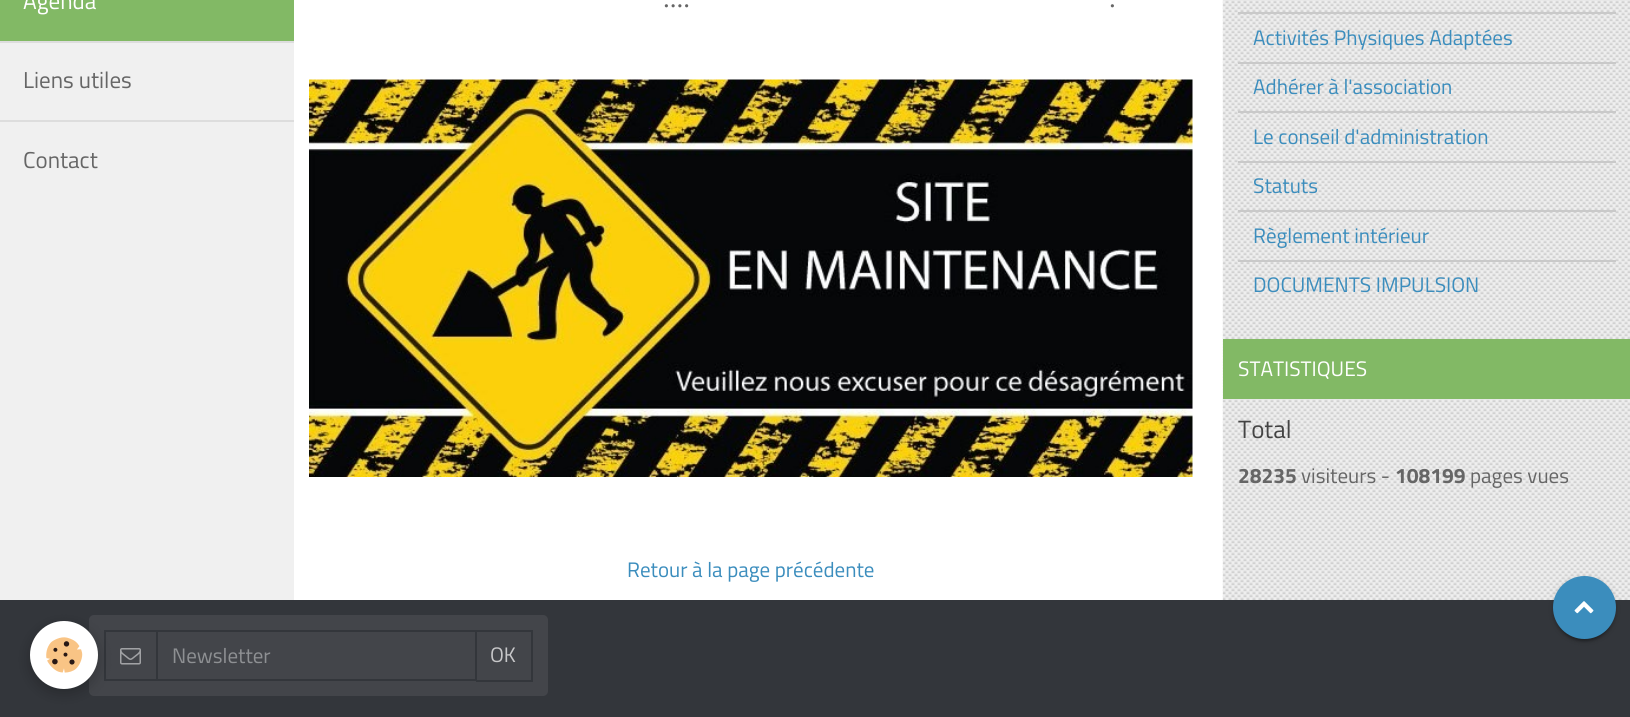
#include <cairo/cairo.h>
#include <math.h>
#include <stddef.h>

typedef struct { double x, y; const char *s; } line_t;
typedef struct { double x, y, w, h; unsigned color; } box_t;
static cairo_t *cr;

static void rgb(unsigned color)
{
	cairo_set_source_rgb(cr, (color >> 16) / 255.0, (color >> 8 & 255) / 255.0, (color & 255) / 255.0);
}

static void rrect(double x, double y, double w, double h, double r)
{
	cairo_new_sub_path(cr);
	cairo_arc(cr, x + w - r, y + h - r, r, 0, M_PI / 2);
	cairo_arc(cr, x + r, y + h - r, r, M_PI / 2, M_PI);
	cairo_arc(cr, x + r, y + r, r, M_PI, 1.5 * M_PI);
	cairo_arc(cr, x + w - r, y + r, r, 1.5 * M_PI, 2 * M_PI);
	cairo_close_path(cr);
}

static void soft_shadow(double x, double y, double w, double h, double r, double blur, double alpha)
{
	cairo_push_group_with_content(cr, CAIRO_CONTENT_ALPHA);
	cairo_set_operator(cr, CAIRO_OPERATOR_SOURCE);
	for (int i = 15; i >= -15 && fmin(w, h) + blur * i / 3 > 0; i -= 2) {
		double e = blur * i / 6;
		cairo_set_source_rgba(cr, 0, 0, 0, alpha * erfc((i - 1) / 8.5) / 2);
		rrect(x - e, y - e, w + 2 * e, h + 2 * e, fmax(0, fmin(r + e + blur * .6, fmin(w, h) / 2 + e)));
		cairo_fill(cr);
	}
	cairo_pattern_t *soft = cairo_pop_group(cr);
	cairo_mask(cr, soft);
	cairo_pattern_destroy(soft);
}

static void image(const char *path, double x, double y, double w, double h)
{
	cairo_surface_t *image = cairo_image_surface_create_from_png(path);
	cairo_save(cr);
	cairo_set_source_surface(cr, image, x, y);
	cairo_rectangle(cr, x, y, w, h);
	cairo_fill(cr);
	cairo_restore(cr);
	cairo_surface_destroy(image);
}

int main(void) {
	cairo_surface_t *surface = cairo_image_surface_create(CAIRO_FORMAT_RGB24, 1630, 717);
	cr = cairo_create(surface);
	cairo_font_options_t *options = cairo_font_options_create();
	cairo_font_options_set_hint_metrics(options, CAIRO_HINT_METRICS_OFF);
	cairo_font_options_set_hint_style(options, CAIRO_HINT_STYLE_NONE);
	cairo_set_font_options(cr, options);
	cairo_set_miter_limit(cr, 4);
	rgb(0xffffff);
	cairo_paint(cr);
	{
		static const box_t items[] = {
			{0, 43, 294, 557, 0xf0f0f0},
			{0, 41, 294, 2, 0xdddddd},
			{0, 0, 294, 41, 0x82b965},
			{0, 120, 294, 2, 0xdddddd},
		};
		for (size_t i = 0; i < sizeof items / sizeof *items; i++) {
			rgb(items[i].color);
			cairo_rectangle(cr, items[i].x, items[i].y, items[i].w, items[i].h);
			cairo_fill(cr);
		}
	}
	image("img/1.png", 309, 79, 884, 398);
	rgb(0xf0f0f0);
	cairo_rectangle(cr, 1223, 0, 407, 600);
	cairo_fill(cr);
	image("img/2.png", 1222, 0, 408, 600);
	{
		static const box_t items[] = {
			{1238, 12, 378, 2, 0xc9c9c9},
			{1238, 62, 378, 2, 0xc9c9c9},
			{1238, 111, 378, 2, 0xc9c9c9},
			{1238, 161, 378, 2, 0xc9c9c9},
			{1238, 210, 378, 2, 0xc9c9c9},
			{1238, 260, 378, 2, 0xc9c9c9},
			{1223, 339, 407, 60, 0x82b965},
			{0, 600, 1630, 117, 0x33363b},
		};
		for (size_t i = 0; i < sizeof items / sizeof *items; i++) {
			rgb(items[i].color);
			cairo_rectangle(cr, items[i].x, items[i].y, items[i].w, items[i].h);
			cairo_fill(cr);
		}
	}
	rgb(0x43454a);
	rrect(89, 615, 459, 81, 5);
	cairo_fill(cr);
	cairo_rectangle(cr, 105, 631, 52, 49);
	rgb(0x33363b);
	cairo_stroke(cr);
	image("img/4.png", 120, 648, 21, 17);
	rgb(0x000000);
	soft_shadow(30, 626, 68, 67, 33.5, 7.5, 0.24);
	rgb(0xffffff);
	cairo_arc(cr, 64, 655, 34, 0, 2 * M_PI);
	cairo_fill(cr);
	image("img/3.png", 46, 637, 37, 36);
	cairo_rectangle(cr, 157, 631, 319, 49);
	rgb(0x33363b);
	cairo_stroke(cr);
	{
		static const box_t items[] = {
			{476, 630, 57, 2, 0x33363b},
			{531, 630, 2, 51, 0x33363b},
			{476, 680, 57, 2, 0x33363b},
		};
		for (size_t i = 0; i < sizeof items / sizeof *items; i++) {
			rgb(items[i].color);
			cairo_rectangle(cr, items[i].x, items[i].y, items[i].w, items[i].h);
			cairo_fill(cr);
		}
	}
	rgb(0x000000);
	soft_shadow(1553, 578, 63, 63, 31.5, 4, 0.12);
	soft_shadow(1556, 584, 57, 57, 28.5, 1, 0.2);
	soft_shadow(1553, 579, 63, 63, 31.5, 1.5, 0.14);
	rgb(0x3b8dbd);
	cairo_arc(cr, 1584.5, 607.5, 31.5, 0, 2 * M_PI);
	cairo_fill(cr);
	image("img/5.png", 1574, 601, 20, 13);
	cairo_select_font_face(cr, "Titillium Web", CAIRO_FONT_SLANT_NORMAL, CAIRO_FONT_WEIGHT_NORMAL);
	cairo_set_font_size(cr, 23);
	rgb(0xffffff);
	cairo_move_to(cr, 23, 9);
	cairo_show_text(cr, "Agenda");
	rgb(0x666666);
	cairo_move_to(cr, 23, 88);
	cairo_show_text(cr, "Liens utiles");
	cairo_move_to(cr, 23, 168);
	cairo_show_text(cr, "Contact");
	cairo_select_font_face(cr, "Liberation Serif", CAIRO_FONT_SLANT_NORMAL, CAIRO_FONT_WEIGHT_NORMAL);
	cairo_set_font_size(cr, 27);
	cairo_move_to(cr, 663, 7);
	cairo_show_text(cr, "....");
	cairo_move_to(cr, 1109, 7);
	cairo_show_text(cr, ".");
	cairo_select_font_face(cr, "Titillium Web", CAIRO_FONT_SLANT_NORMAL, CAIRO_FONT_WEIGHT_NORMAL);
	cairo_set_font_size(cr, 21);
	rgb(0x3b8dbd);
	{
		static const line_t items[] = {
			{627, 577, "Retour à la page précédente"},
			{1253, 45, "Activités Physiques Adaptées"},
			{1253, 94, "Adhérer à l'association"},
			{1253, 144, "Le conseil d'administration"},
			{1253, 193, "Statuts"},
			{1253, 243, "Règlement intérieur"},
			{1253, 292, "DOCUMENTS IMPULSION"},
		};
		for (size_t i = 0; i < sizeof items / sizeof *items; i++) {
			cairo_move_to(cr, items[i].x, items[i].y);
			cairo_show_text(cr, items[i].s);
		}
	}
	rgb(0xffffff);
	cairo_move_to(cr, 1238, 376);
	cairo_show_text(cr, "STATISTIQUES");
	cairo_set_font_size(cr, 25);
	rgb(0x444444);
	cairo_move_to(cr, 1238, 438);
	cairo_show_text(cr, "Total");
	cairo_select_font_face(cr, "Titillium Web", CAIRO_FONT_SLANT_NORMAL, CAIRO_FONT_WEIGHT_BOLD);
	cairo_set_font_size(cr, 21);
	rgb(0x666666);
	cairo_move_to(cr, 1238, 483);
	cairo_show_text(cr, "28235");
	cairo_select_font_face(cr, "Titillium Web", CAIRO_FONT_SLANT_NORMAL, CAIRO_FONT_WEIGHT_NORMAL);
	cairo_move_to(cr, 1301, 483);
	cairo_show_text(cr, "visiteurs -");
	cairo_select_font_face(cr, "Titillium Web", CAIRO_FONT_SLANT_NORMAL, CAIRO_FONT_WEIGHT_BOLD);
	cairo_move_to(cr, 1395, 483);
	cairo_show_text(cr, "108199");
	cairo_select_font_face(cr, "Titillium Web", CAIRO_FONT_SLANT_NORMAL, CAIRO_FONT_WEIGHT_NORMAL);
	cairo_move_to(cr, 1470, 483);
	cairo_show_text(cr, "pages vues");
	rgb(0x8e9093);
	cairo_move_to(cr, 172, 663);
	cairo_show_text(cr, "Newsletter");
	rgb(0xc7c7c9);
	cairo_move_to(cr, 490, 662);
	cairo_show_text(cr, "OK");
	cairo_surface_write_to_png(surface, "page.png");
	cairo_font_options_destroy(options);
	cairo_destroy(cr);
	cairo_surface_destroy(surface);
	return 0;
}
